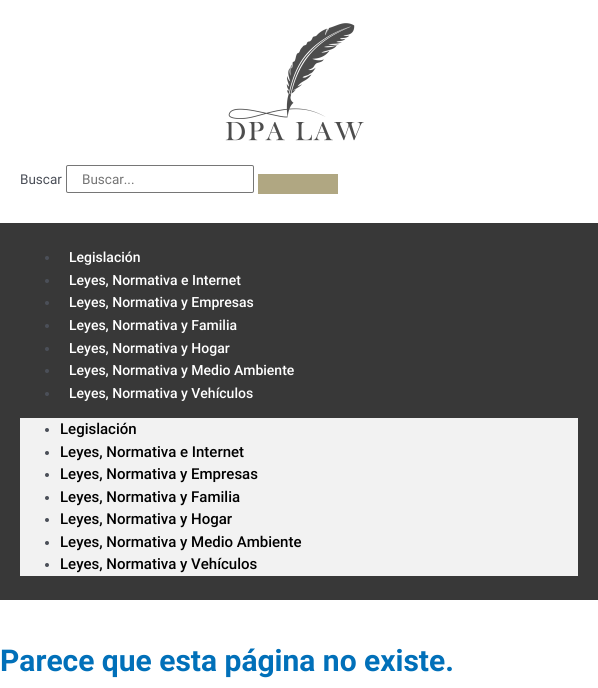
#include <cairo/cairo.h>
#include <math.h>
#include <stddef.h>

typedef struct { double x, y; const char *s; } line_t;
static cairo_t *cr;

static void rgb(unsigned color)
{
	cairo_set_source_rgb(cr, (color >> 16) / 255.0, (color >> 8 & 255) / 255.0, (color & 255) / 255.0);
}

static void rrect(double x, double y, double w, double h, double r)
{
	cairo_new_sub_path(cr);
	cairo_arc(cr, x + w - r, y + h - r, r, 0, M_PI / 2);
	cairo_arc(cr, x + r, y + h - r, r, M_PI / 2, M_PI);
	cairo_arc(cr, x + r, y + r, r, M_PI, 1.5 * M_PI);
	cairo_arc(cr, x + w - r, y + r, r, 1.5 * M_PI, 2 * M_PI);
	cairo_close_path(cr);
}

static void image(const char *path, double x, double y, double w, double h)
{
	cairo_surface_t *image = cairo_image_surface_create_from_png(path);
	cairo_save(cr);
	cairo_set_source_surface(cr, image, x, y);
	cairo_rectangle(cr, x, y, w, h);
	cairo_fill(cr);
	cairo_restore(cr);
	cairo_surface_destroy(image);
}

int main(void) {
	cairo_surface_t *surface = cairo_image_surface_create(CAIRO_FORMAT_RGB24, 598, 688);
	cr = cairo_create(surface);
	cairo_font_options_t *options = cairo_font_options_create();
	cairo_font_options_set_hint_metrics(options, CAIRO_HINT_METRICS_OFF);
	cairo_font_options_set_hint_style(options, CAIRO_HINT_STYLE_NONE);
	cairo_set_font_options(cr, options);
	cairo_set_miter_limit(cr, 4);
	rgb(0xffffff);
	cairo_paint(cr);
	image("img/1.png", 225, 23, 139, 118);
	rrect(66.5, 165.5, 187, 27, 1.5);
	rgb(0x767676);
	cairo_set_line_width(cr, 1);
	cairo_stroke(cr);
	rgb(0xb0a782);
	cairo_rectangle(cr, 258, 174, 80, 20);
	cairo_fill(cr);
	rgb(0x383838);
	cairo_rectangle(cr, 0, 223, 598, 377);
	cairo_fill(cr);
	rgb(0x4b4f58);
	cairo_arc(cr, 47, 258, 2, 0, 2 * M_PI);
	cairo_fill(cr);
	cairo_arc(cr, 47, 281, 2, 0, 2 * M_PI);
	cairo_fill(cr);
	cairo_arc(cr, 47, 303, 2, 0, 2 * M_PI);
	cairo_fill(cr);
	cairo_arc(cr, 47, 326, 2, 0, 2 * M_PI);
	cairo_fill(cr);
	cairo_arc(cr, 47, 349, 2, 0, 2 * M_PI);
	cairo_fill(cr);
	cairo_arc(cr, 47, 371, 2, 0, 2 * M_PI);
	cairo_fill(cr);
	cairo_arc(cr, 47, 394, 2, 0, 2 * M_PI);
	cairo_fill(cr);
	rgb(0xf2f2f2);
	cairo_rectangle(cr, 20, 418, 558, 158);
	cairo_fill(cr);
	rgb(0x4b4f58);
	cairo_arc(cr, 47, 430, 2, 0, 2 * M_PI);
	cairo_fill(cr);
	cairo_arc(cr, 47, 453, 2, 0, 2 * M_PI);
	cairo_fill(cr);
	cairo_arc(cr, 47, 475, 2, 0, 2 * M_PI);
	cairo_fill(cr);
	cairo_arc(cr, 47, 498, 2, 0, 2 * M_PI);
	cairo_fill(cr);
	cairo_arc(cr, 47, 520, 2, 0, 2 * M_PI);
	cairo_fill(cr);
	cairo_arc(cr, 47, 543, 2, 0, 2 * M_PI);
	cairo_fill(cr);
	cairo_arc(cr, 47, 565, 2, 0, 2 * M_PI);
	cairo_fill(cr);
	cairo_select_font_face(cr, "Roboto", CAIRO_FONT_SLANT_NORMAL, CAIRO_FONT_WEIGHT_NORMAL);
	cairo_set_font_size(cr, 13.5);
	cairo_move_to(cr, 20, 184);
	cairo_show_text(cr, "Buscar");
	rgb(0x757575);
	cairo_move_to(cr, 82, 184);
	cairo_show_text(cr, "Buscar...");
	cairo_select_font_face(cr, "Roboto Medium", CAIRO_FONT_SLANT_NORMAL, CAIRO_FONT_WEIGHT_NORMAL);
	cairo_set_font_size(cr, 14);
	rgb(0xffffff);
	{
		static const line_t items[] = {
			{69, 262, "Legislación"},
			{69, 285, "Leyes, Normativa e Internet"},
			{69, 307, "Leyes, Normativa y Empresas"},
			{69, 330, "Leyes, Normativa y Familia"},
			{69, 353, "Leyes, Normativa y Hogar"},
			{69, 375, "Leyes, Normativa y Medio Ambiente"},
			{69, 398, "Leyes, Normativa y Vehículos"},
		};
		for (size_t i = 0; i < sizeof items / sizeof *items; i++) {
			cairo_move_to(cr, items[i].x, items[i].y);
			cairo_show_text(cr, items[i].s);
		}
	}
	cairo_set_font_size(cr, 15);
	rgb(0x000000);
	{
		static const line_t items[] = {
			{60, 434, "Legislación"},
			{60, 457, "Leyes, Normativa e Internet"},
			{60, 479, "Leyes, Normativa y Empresas"},
			{60, 502, "Leyes, Normativa y Familia"},
			{60, 524, "Leyes, Normativa y Hogar"},
			{60, 547, "Leyes, Normativa y Medio Ambiente"},
			{60, 569, "Leyes, Normativa y Vehículos"},
		};
		for (size_t i = 0; i < sizeof items / sizeof *items; i++) {
			cairo_move_to(cr, items[i].x, items[i].y);
			cairo_show_text(cr, items[i].s);
		}
	}
	cairo_select_font_face(cr, "Roboto", CAIRO_FONT_SLANT_NORMAL, CAIRO_FONT_WEIGHT_BOLD);
	cairo_set_font_size(cr, 30);
	rgb(0x0170b9);
	cairo_move_to(cr, 0, 671);
	cairo_show_text(cr, "Parece que esta página no existe.");
	cairo_surface_write_to_png(surface, "page.png");
	cairo_font_options_destroy(options);
	cairo_destroy(cr);
	cairo_surface_destroy(surface);
	return 0;
}
